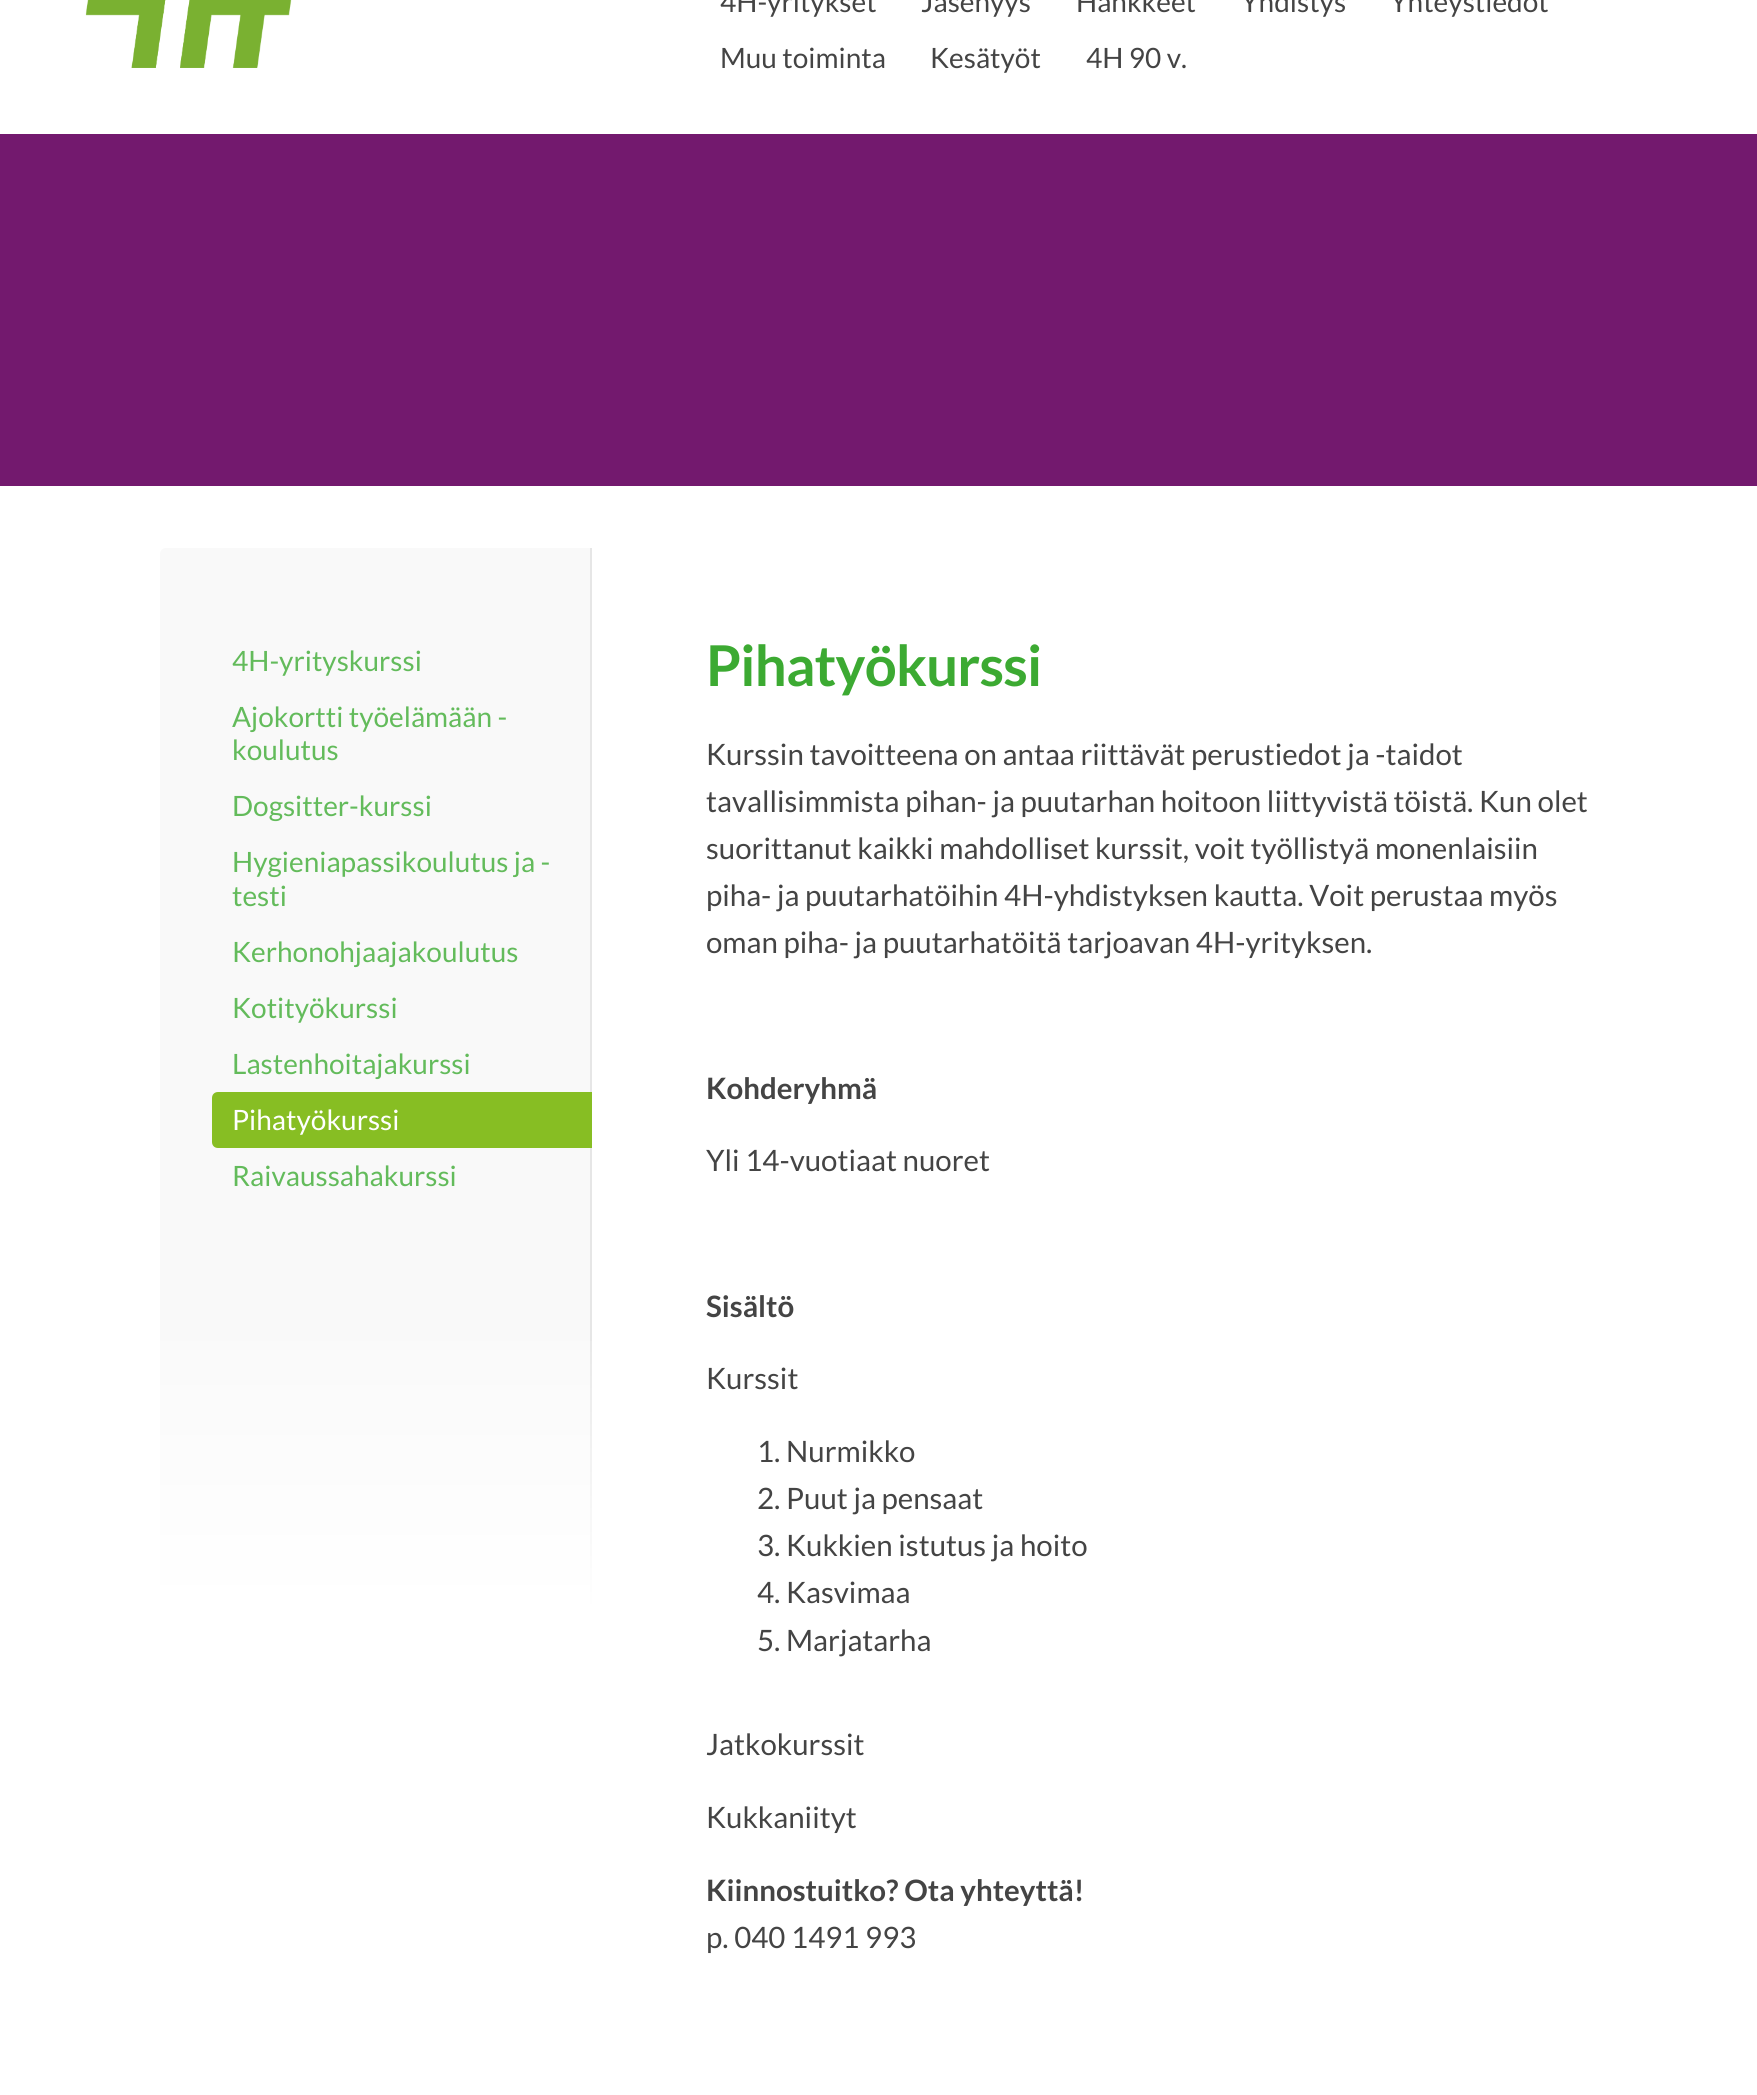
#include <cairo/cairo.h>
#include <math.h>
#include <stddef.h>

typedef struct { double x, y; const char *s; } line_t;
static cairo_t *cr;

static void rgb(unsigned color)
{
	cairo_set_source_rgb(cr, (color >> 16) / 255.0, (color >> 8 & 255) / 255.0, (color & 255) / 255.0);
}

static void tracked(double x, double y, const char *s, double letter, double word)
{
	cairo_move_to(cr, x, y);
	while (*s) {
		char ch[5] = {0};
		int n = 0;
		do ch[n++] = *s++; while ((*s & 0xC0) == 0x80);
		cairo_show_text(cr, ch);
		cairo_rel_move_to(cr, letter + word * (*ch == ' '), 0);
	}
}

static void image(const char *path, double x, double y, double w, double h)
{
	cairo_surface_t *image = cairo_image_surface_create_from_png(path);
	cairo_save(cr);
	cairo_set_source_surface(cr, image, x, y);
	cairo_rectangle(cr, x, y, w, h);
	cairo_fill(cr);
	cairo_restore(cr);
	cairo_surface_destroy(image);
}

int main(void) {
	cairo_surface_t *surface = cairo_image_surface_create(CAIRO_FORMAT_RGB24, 1757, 2095);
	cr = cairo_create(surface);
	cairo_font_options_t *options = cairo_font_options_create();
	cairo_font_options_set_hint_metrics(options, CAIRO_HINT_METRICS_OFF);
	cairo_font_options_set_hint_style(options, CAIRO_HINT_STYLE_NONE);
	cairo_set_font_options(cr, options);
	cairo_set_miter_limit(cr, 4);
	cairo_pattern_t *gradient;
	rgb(0xffffff);
	cairo_paint(cr);
	rgb(0x73196e);
	cairo_rectangle(cr, 0, 134, 1757, 352);
	cairo_fill(cr);
	image("img/1.png", 85, 0, 207, 68);
	rgb(0xf9f9f9);
	cairo_new_path(cr);
	cairo_move_to(cr, 166, 548);
	cairo_line_to(cr, 592, 548);
	cairo_line_to(cr, 592, 1610);
	cairo_line_to(cr, 160, 1610);
	cairo_line_to(cr, 160, 554);
	cairo_curve_to(cr, 160, 550.5, 162.5, 548, 166, 548);
	cairo_close_path(cr);
	cairo_fill(cr);
	rgb(0xe6e6e6);
	cairo_rectangle(cr, 590, 548, 2, 1062);
	cairo_fill(cr);
	rgb(0x87be23);
	cairo_new_path(cr);
	cairo_move_to(cr, 218, 1092);
	cairo_line_to(cr, 592, 1092);
	cairo_line_to(cr, 592, 1148);
	cairo_line_to(cr, 218, 1148);
	cairo_curve_to(cr, 214.5, 1148, 212, 1145.5, 212, 1142);
	cairo_line_to(cr, 212, 1098);
	cairo_curve_to(cr, 212, 1094.5, 214.5, 1092, 218, 1092);
	cairo_close_path(cr);
	cairo_fill(cr);
	gradient = cairo_pattern_create_linear(376, 1310, 376, 1610);
	cairo_pattern_add_color_stop_rgba(gradient, 0, 1, 1, 1, 0);
	cairo_pattern_add_color_stop_rgba(gradient, 1, 1, 1, 1, 1);
	cairo_set_source(cr, gradient);
	cairo_pattern_destroy(gradient);
	cairo_rectangle(cr, 160, 1341, 432, 269);
	cairo_fill(cr);
	cairo_select_font_face(cr, "Lato", CAIRO_FONT_SLANT_NORMAL, CAIRO_FONT_WEIGHT_NORMAL);
	cairo_set_font_size(cr, 28);
	rgb(0x444444);
	{
		static const line_t items[] = {
			{720, 12, "4H-yritykset"},
			{921, 12, "Jäsenyys"},
			{1076, 12, "Hankkeet"},
			{1241, 12, "Yhdistys"},
			{1390, 12, "Yhteystiedot"},
			{720, 68, "Muu toiminta"},
			{930, 68, "Kesätyöt"},
			{1086, 68, "4H 90 v."},
		};
		for (size_t i = 0; i < sizeof items / sizeof *items; i++) {
			cairo_move_to(cr, items[i].x, items[i].y);
			cairo_show_text(cr, items[i].s);
		}
	}
	rgb(0x63bb5b);
	{
		static const line_t items[] = {
			{232, 671, "4H-yrityskurssi"},
			{232, 727, "Ajokortti työelämään -"},
			{232, 760, "koulutus"},
			{232, 816, "Dogsitter-kurssi"},
			{232, 872, "Hygieniapassikoulutus ja -"},
			{232, 906, "testi"},
			{232, 962, "Kerhonohjaajakoulutus"},
			{232, 1018, "Kotityökurssi"},
			{232, 1074, "Lastenhoitajakurssi"},
		};
		for (size_t i = 0; i < sizeof items / sizeof *items; i++) {
			cairo_move_to(cr, items[i].x, items[i].y);
			cairo_show_text(cr, items[i].s);
		}
	}
	rgb(0xffffff);
	cairo_move_to(cr, 232, 1130);
	cairo_show_text(cr, "Pihatyökurssi");
	rgb(0x63bb5b);
	cairo_move_to(cr, 232, 1186);
	cairo_show_text(cr, "Raivaussahakurssi");
	cairo_select_font_face(cr, "Lato", CAIRO_FONT_SLANT_NORMAL, CAIRO_FONT_WEIGHT_BOLD);
	cairo_set_font_size(cr, 56.25);
	rgb(0x3caa32);
	tracked(706, 686, "Pihatyökurssi", -0.8, 0);
	cairo_select_font_face(cr, "Lato", CAIRO_FONT_SLANT_NORMAL, CAIRO_FONT_WEIGHT_NORMAL);
	cairo_set_font_size(cr, 29.45);
	rgb(0x444444);
	{
		static const line_t items[] = {
			{706, 765, "Kurssin tavoitteena on antaa riittävät perustiedot ja -taidot"},
			{706, 812, "tavallisimmista pihan- ja puutarhan hoitoon liittyvistä töistä. Kun olet"},
			{706, 859, "suorittanut kaikki mahdolliset kurssit, voit työllistyä monenlaisiin"},
			{706, 906, "piha- ja puutarhatöihin 4H-yhdistyksen kautta. Voit perustaa myös"},
			{706, 953, "oman piha- ja puutarhatöitä tarjoavan 4H-yrityksen."},
		};
		for (size_t i = 0; i < sizeof items / sizeof *items; i++) {
			cairo_move_to(cr, items[i].x, items[i].y);
			cairo_show_text(cr, items[i].s);
		}
	}
	cairo_select_font_face(cr, "Lato", CAIRO_FONT_SLANT_NORMAL, CAIRO_FONT_WEIGHT_BOLD);
	cairo_move_to(cr, 706, 1099);
	cairo_show_text(cr, "Kohderyhmä");
	cairo_select_font_face(cr, "Lato", CAIRO_FONT_SLANT_NORMAL, CAIRO_FONT_WEIGHT_NORMAL);
	cairo_move_to(cr, 706, 1171);
	cairo_show_text(cr, "Yli 14-vuotiaat nuoret");
	cairo_select_font_face(cr, "Lato", CAIRO_FONT_SLANT_NORMAL, CAIRO_FONT_WEIGHT_BOLD);
	cairo_move_to(cr, 706, 1317);
	cairo_show_text(cr, "Sisältö");
	cairo_select_font_face(cr, "Lato", CAIRO_FONT_SLANT_NORMAL, CAIRO_FONT_WEIGHT_NORMAL);
	{
		static const line_t items[] = {
			{706, 1389, "Kurssit"},
			{757, 1462, "1. Nurmikko"},
			{757, 1509, "2. Puut ja pensaat"},
			{757, 1556, "3. Kukkien istutus ja hoito"},
			{757, 1603, "4. Kasvimaa"},
			{757, 1651, "5. Marjatarha"},
			{706, 1755, "Jatkokurssit"},
			{706, 1828, "Kukkaniityt"},
		};
		for (size_t i = 0; i < sizeof items / sizeof *items; i++) {
			cairo_move_to(cr, items[i].x, items[i].y);
			cairo_show_text(cr, items[i].s);
		}
	}
	cairo_select_font_face(cr, "Lato", CAIRO_FONT_SLANT_NORMAL, CAIRO_FONT_WEIGHT_BOLD);
	cairo_move_to(cr, 706, 1901);
	cairo_show_text(cr, "Kiinnostuitko? Ota yhteyttä!");
	cairo_select_font_face(cr, "Lato", CAIRO_FONT_SLANT_NORMAL, CAIRO_FONT_WEIGHT_NORMAL);
	cairo_move_to(cr, 706, 1948);
	cairo_show_text(cr, "p. 040 1491 993");
	cairo_surface_write_to_png(surface, "page.png");
	cairo_font_options_destroy(options);
	cairo_destroy(cr);
	cairo_surface_destroy(surface);
	return 0;
}
